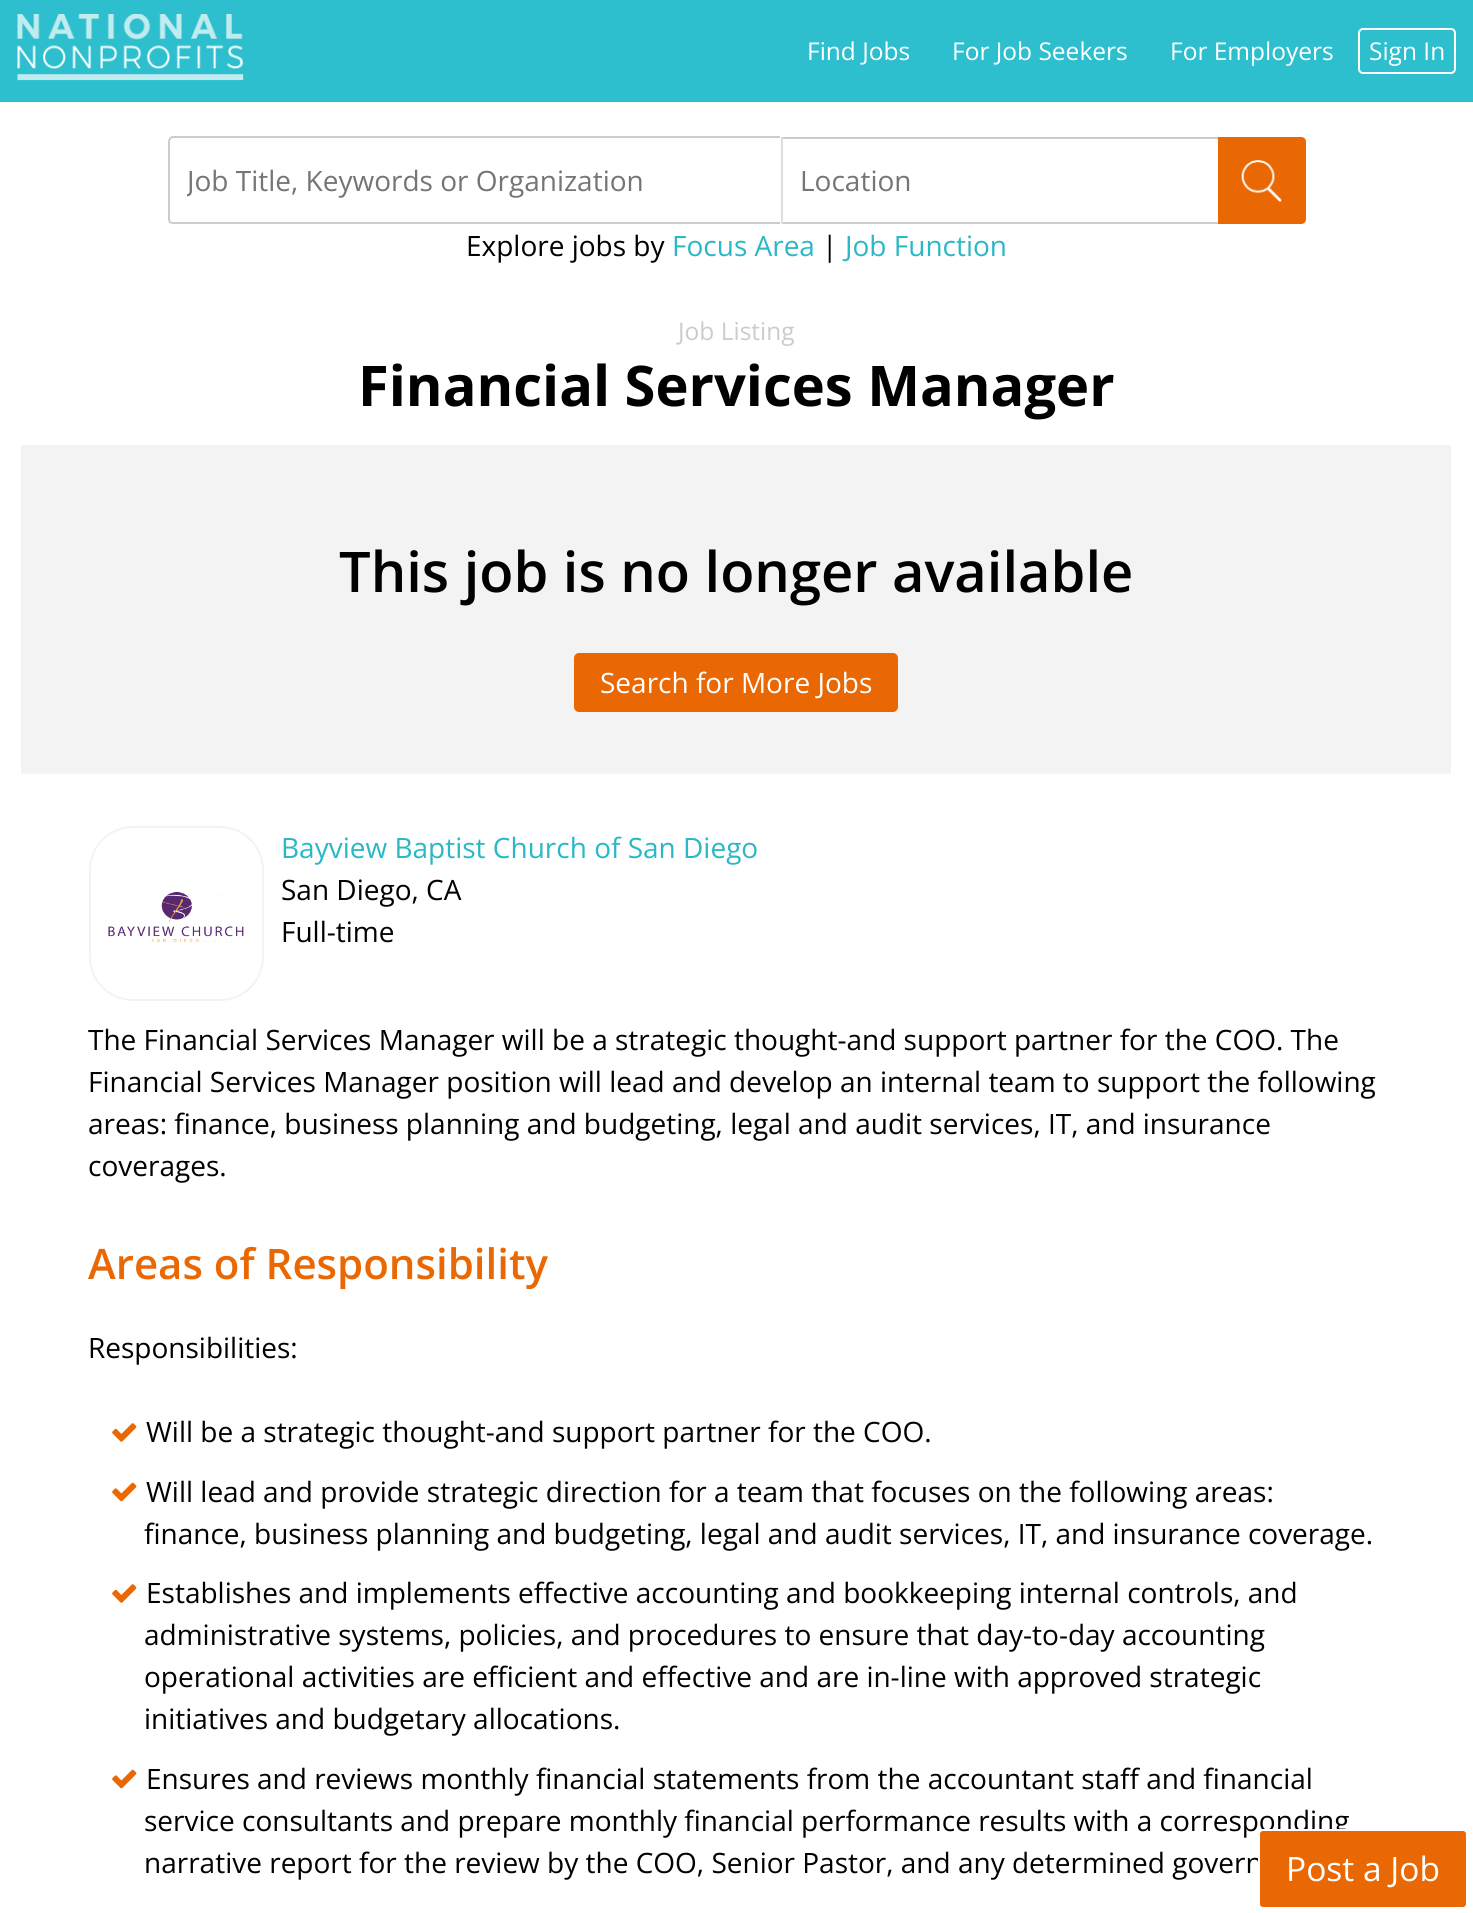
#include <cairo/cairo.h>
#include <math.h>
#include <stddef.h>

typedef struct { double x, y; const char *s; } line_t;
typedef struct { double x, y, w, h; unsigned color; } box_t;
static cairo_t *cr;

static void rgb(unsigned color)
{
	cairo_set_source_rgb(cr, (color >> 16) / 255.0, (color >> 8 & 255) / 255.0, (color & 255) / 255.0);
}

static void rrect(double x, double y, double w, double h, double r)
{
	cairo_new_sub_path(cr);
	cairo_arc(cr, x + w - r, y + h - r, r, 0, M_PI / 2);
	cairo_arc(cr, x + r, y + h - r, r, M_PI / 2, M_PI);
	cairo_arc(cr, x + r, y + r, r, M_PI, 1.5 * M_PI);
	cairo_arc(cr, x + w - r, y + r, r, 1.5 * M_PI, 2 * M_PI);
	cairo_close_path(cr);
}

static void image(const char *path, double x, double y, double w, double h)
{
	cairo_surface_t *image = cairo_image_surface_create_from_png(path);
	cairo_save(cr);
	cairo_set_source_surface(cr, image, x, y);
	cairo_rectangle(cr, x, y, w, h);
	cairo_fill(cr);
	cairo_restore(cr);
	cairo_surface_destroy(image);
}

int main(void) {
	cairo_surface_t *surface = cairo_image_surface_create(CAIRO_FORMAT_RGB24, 1473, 1913);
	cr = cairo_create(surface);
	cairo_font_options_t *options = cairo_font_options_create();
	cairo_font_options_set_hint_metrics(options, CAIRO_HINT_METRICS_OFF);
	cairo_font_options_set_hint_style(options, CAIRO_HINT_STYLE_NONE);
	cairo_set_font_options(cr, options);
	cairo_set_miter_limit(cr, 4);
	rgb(0xffffff);
	cairo_paint(cr);
	rgb(0x2dbfcd);
	cairo_rectangle(cr, 0, 0, 1473, 102);
	cairo_fill(cr);
	image("img/1.png", 17, 14, 227, 67);
	rrect(1359, 29, 96, 44, 4);
	rgb(0xffffff);
	cairo_stroke(cr);
	rgb(0xcccccc);
	cairo_set_fill_rule(cr, CAIRO_FILL_RULE_EVEN_ODD);
	cairo_new_path(cr);
	cairo_move_to(cr, 173, 136);
	cairo_line_to(cr, 780, 136);
	cairo_line_to(cr, 780, 224);
	cairo_line_to(cr, 173, 224);
	cairo_curve_to(cr, 170, 224, 168, 222, 168, 219);
	cairo_line_to(cr, 168, 142);
	cairo_curve_to(cr, 168, 139, 170, 136, 173, 136);
	cairo_close_path(cr);
	cairo_move_to(cr, 173, 138);
	cairo_line_to(cr, 780, 138);
	cairo_line_to(cr, 780, 222);
	cairo_line_to(cr, 173, 222);
	cairo_curve_to(cr, 171, 222, 170, 221, 170, 219);
	cairo_line_to(cr, 170, 142);
	cairo_curve_to(cr, 170, 140, 171, 138, 173, 138);
	cairo_close_path(cr);
	cairo_fill(cr);
	{
		static const box_t items[] = {
			{781, 137, 437, 2, 0xcccccc},
			{781, 222, 437, 2, 0xcccccc},
			{781, 137, 2, 87, 0xdddddd},
		};
		for (size_t i = 0; i < sizeof items / sizeof *items; i++) {
			rgb(items[i].color);
			cairo_rectangle(cr, items[i].x, items[i].y, items[i].w, items[i].h);
			cairo_fill(cr);
		}
	}
	rgb(0xe96803);
	cairo_new_path(cr);
	cairo_move_to(cr, 1218, 137);
	cairo_line_to(cr, 1301, 137);
	cairo_curve_to(cr, 1304, 137, 1306, 139, 1306, 142);
	cairo_line_to(cr, 1306, 219);
	cairo_curve_to(cr, 1306, 222, 1304, 224, 1301, 224);
	cairo_line_to(cr, 1218, 224);
	cairo_close_path(cr);
	cairo_fill(cr);
	image("img/2.png", 1241, 160, 41, 43);
	rgb(0xf3f3f3);
	cairo_rectangle(cr, 21, 445, 1430, 329);
	cairo_fill(cr);
	rgb(0xe96803);
	rrect(574, 653, 324, 59, 5);
	cairo_fill(cr);
	rrect(90, 827, 173, 173, 43);
	rgb(0xf3f3f3);
	cairo_stroke(cr);
	image("img/3.png", 108, 892, 136, 51);
	image("img/4.png", 112, 1423, 25, 19);
	image("img/5.png", 112, 1482, 25, 20);
	image("img/4.png", 112, 1584, 25, 19);
	image("img/5.png", 112, 1769, 25, 20);
	cairo_select_font_face(cr, "Open Sans", CAIRO_FONT_SLANT_NORMAL, CAIRO_FONT_WEIGHT_NORMAL);
	cairo_set_font_size(cr, 24.5);
	rgb(0xffffff);
	{
		static const line_t items[] = {
			{807, 60, "Find Jobs"},
			{952, 60, "For Job Seekers"},
			{1170, 60, "For Employers"},
			{1369, 60, "Sign In"},
		};
		for (size_t i = 0; i < sizeof items / sizeof *items; i++) {
			cairo_move_to(cr, items[i].x, items[i].y);
			cairo_show_text(cr, items[i].s);
		}
	}
	cairo_save(cr);
	cairo_set_fill_rule(cr, CAIRO_FILL_RULE_WINDING);
	cairo_rectangle(cr, 187, 161, 576, 39);
	cairo_clip(cr);
	cairo_set_font_size(cr, 28);
	rgb(0x757575);
	cairo_move_to(cr, 187, 191);
	cairo_show_text(cr, "Job Title, Keywords or Organization");
	cairo_restore(cr);
	cairo_set_font_size(cr, 28);
	rgb(0x757575);
	cairo_move_to(cr, 800, 191);
	cairo_show_text(cr, "Location");
	rgb(0x000000);
	cairo_move_to(cr, 466, 256);
	cairo_show_text(cr, "Explore jobs by");
	rgb(0x2ab8c6);
	cairo_move_to(cr, 672, 256);
	cairo_show_text(cr, "Focus Area");
	rgb(0x000000);
	cairo_move_to(cr, 822, 256);
	cairo_show_text(cr, "|");
	rgb(0x2ab8c6);
	cairo_move_to(cr, 845, 256);
	cairo_show_text(cr, "Job Function");
	cairo_set_font_size(cr, 24.5);
	rgb(0xcccccc);
	cairo_move_to(cr, 678, 340);
	cairo_show_text(cr, "Job Listing");
	cairo_select_font_face(cr, "Open Sans", CAIRO_FONT_SLANT_NORMAL, CAIRO_FONT_WEIGHT_BOLD);
	cairo_set_font_size(cr, 56);
	rgb(0x000000);
	cairo_move_to(cr, 358, 406);
	cairo_show_text(cr, "Financial Services Manager");
	cairo_select_font_face(cr, "Open Sans SemiBold", CAIRO_FONT_SLANT_NORMAL, CAIRO_FONT_WEIGHT_NORMAL);
	cairo_move_to(cr, 339, 592);
	cairo_show_text(cr, "This job is no longer available");
	cairo_select_font_face(cr, "Open Sans", CAIRO_FONT_SLANT_NORMAL, CAIRO_FONT_WEIGHT_NORMAL);
	cairo_set_font_size(cr, 28);
	rgb(0xffffff);
	cairo_move_to(cr, 600, 693);
	cairo_show_text(cr, "Search for More Jobs");
	rgb(0x2ab8c6);
	cairo_move_to(cr, 281, 858);
	cairo_show_text(cr, "Bayview Baptist Church of San Diego");
	rgb(0x000000);
	{
		static const line_t items[] = {
			{281, 900, "San Diego, CA"},
			{281, 942, "Full-time"},
			{88, 1050, "The Financial Services Manager will be a strategic thought-and support partner for the COO. The"},
			{88, 1092, "Financial Services Manager position will lead and develop an internal team to support the following"},
			{88, 1134, "areas: finance, business planning and budgeting, legal and audit services, IT, and insurance"},
			{88, 1176, "coverages."},
		};
		for (size_t i = 0; i < sizeof items / sizeof *items; i++) {
			cairo_move_to(cr, items[i].x, items[i].y);
			cairo_show_text(cr, items[i].s);
		}
	}
	cairo_select_font_face(cr, "Open Sans SemiBold", CAIRO_FONT_SLANT_NORMAL, CAIRO_FONT_WEIGHT_NORMAL);
	cairo_set_font_size(cr, 42);
	rgb(0xe96803);
	cairo_move_to(cr, 88, 1279);
	cairo_show_text(cr, "Areas of Responsibility");
	cairo_select_font_face(cr, "Open Sans", CAIRO_FONT_SLANT_NORMAL, CAIRO_FONT_WEIGHT_NORMAL);
	cairo_set_font_size(cr, 28);
	rgb(0x000000);
	{
		static const line_t items[] = {
			{88, 1358, "Responsibilities:"},
			{146, 1442, "Will be a strategic thought-and support partner for the COO."},
			{146, 1502, "Will lead and provide strategic direction for a team that focuses on the following areas:"},
			{144, 1544, "finance, business planning and budgeting, legal and audit services, IT, and insurance coverage."},
			{146, 1603, "Establishes and implements effective accounting and bookkeeping internal controls, and"},
			{144, 1645, "administrative systems, policies, and procedures to ensure that day-to-day accounting"},
			{144, 1687, "operational activities are efficient and effective and are in-line with approved strategic"},
			{144, 1729, "initiatives and budgetary allocations."},
			{146, 1789, "Ensures and reviews monthly financial statements from the accountant staff and financial"},
			{144, 1831, "service consultants and prepare monthly financial performance results with a corresponding"},
			{144, 1873, "narrative report for the review by the COO, Senior Pastor, and any determined govern"},
		};
		for (size_t i = 0; i < sizeof items / sizeof *items; i++) {
			cairo_move_to(cr, items[i].x, items[i].y);
			cairo_show_text(cr, items[i].s);
		}
	}
	rgb(0xe96803);
	rrect(1259, 1830, 208, 78, 4);
	cairo_fill_preserve(cr);
	rgb(0xffffff);
	cairo_stroke(cr);
	cairo_set_font_size(cr, 33.5);
	cairo_move_to(cr, 1286, 1881);
	cairo_show_text(cr, "Post a Job");
	cairo_surface_write_to_png(surface, "page.png");
	cairo_font_options_destroy(options);
	cairo_destroy(cr);
	cairo_surface_destroy(surface);
	return 0;
}
